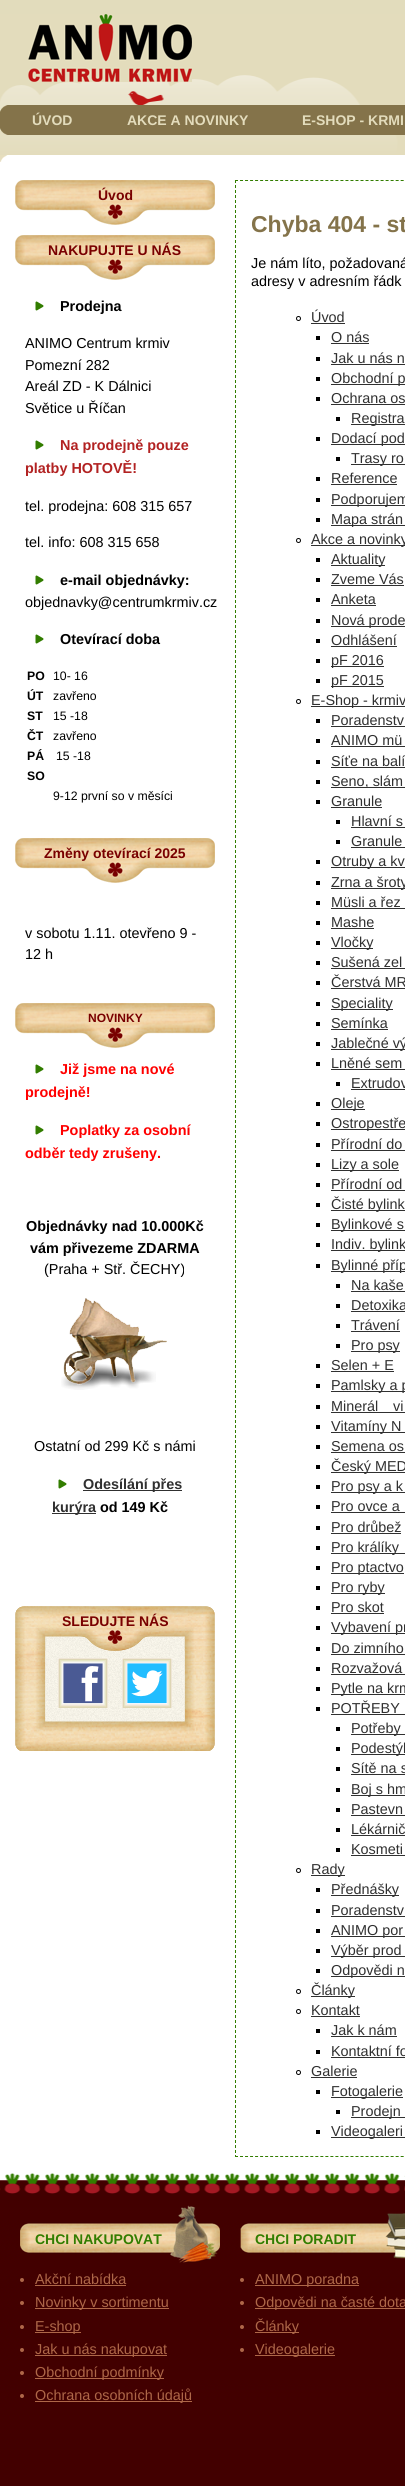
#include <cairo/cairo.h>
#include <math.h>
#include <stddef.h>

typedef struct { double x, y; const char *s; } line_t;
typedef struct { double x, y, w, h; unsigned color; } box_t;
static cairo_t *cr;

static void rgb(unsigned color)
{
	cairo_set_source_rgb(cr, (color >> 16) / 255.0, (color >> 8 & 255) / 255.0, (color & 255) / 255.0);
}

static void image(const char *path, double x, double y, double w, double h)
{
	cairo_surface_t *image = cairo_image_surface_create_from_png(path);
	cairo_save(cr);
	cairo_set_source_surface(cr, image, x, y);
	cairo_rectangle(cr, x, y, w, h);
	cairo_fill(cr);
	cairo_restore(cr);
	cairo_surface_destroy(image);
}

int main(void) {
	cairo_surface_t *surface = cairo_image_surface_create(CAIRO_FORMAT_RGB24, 405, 2486);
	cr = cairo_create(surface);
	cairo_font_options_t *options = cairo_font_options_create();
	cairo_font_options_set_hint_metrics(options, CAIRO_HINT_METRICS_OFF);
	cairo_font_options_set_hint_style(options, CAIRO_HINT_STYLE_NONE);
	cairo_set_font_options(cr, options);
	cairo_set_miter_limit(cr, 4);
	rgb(0xffffff);
	cairo_paint(cr);
	image("img/1.png", 0, 0, 405, 155);
	image("img/2.png", 28, 14, 164, 68);
	image("img/3.png", 0, 105, 405, 30);
	image("img/4.png", 0, 155, 8, 7);
	image("img/5.png", 15, 180, 200, 45);
	image("img/5.png", 15, 235, 200, 45);
	image("img/6.png", 35, 301, 9, 10);
	image("img/6.png", 35, 440, 9, 10);
	image("img/6.png", 35, 575, 9, 10);
	image("img/6.png", 35, 634, 9, 10);
	image("img/5.png", 15, 838, 200, 45);
	image("img/5.png", 15, 1003, 200, 45);
	image("img/6.png", 35, 1064, 9, 10);
	image("img/6.png", 35, 1125, 9, 10);
	image("img/7.png", 61, 1298, 106, 92);
	image("img/6.png", 58, 1479, 9, 10);
	rgb(0x303030);
	cairo_rectangle(cr, 83, 1490, 99, 1);
	cairo_fill(cr);
	cairo_rectangle(cr, 52, 1513, 44, 1);
	cairo_fill(cr);
	image("img/8.png", 15, 1651, 200, 100);
	image("img/9.png", 15, 1606, 200, 45);
	image("img/10.png", 58, 1658, 50, 50);
	image("img/11.png", 122, 1658, 50, 50);
	cairo_new_path(cr);
	cairo_move_to(cr, 235, 180.5);
	cairo_line_to(cr, 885, 180.5);
	rgb(0x327d00);
	cairo_set_line_width(cr, 1);
	cairo_set_dash(cr, (double[]){3, 2.02}, 2, 0);
	cairo_stroke(cr);
	cairo_new_path(cr);
	cairo_move_to(cr, 235, 2156.5);
	cairo_line_to(cr, 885, 2156.5);
	cairo_stroke(cr);
	cairo_new_path(cr);
	cairo_move_to(cr, 235.5, 180);
	cairo_line_to(cr, 235.5, 2157);
	cairo_set_dash(cr, (double[]){3, 2}, 2, 0);
	cairo_stroke(cr);
	cairo_arc(cr, 298.5, 318.5, 2, 0, 2 * M_PI);
	rgb(0x000000);
	cairo_set_dash(cr, NULL, 0, 0);
	cairo_stroke(cr);
	{
		static const box_t items[] = {
			{311, 323, 34, 1, 0x303030},
			{316, 336, 4, 4, 0x000000},
			{331, 343, 38, 1, 0x303030},
			{316, 357, 4, 4, 0x000000},
			{331, 364, 74, 1, 0x303030},
			{316, 377, 4, 4, 0x000000},
			{331, 384, 74, 1, 0x303030},
			{316, 397, 4, 4, 0x000000},
			{331, 404, 74, 1, 0x303030},
			{336, 417, 4, 4, 0x000000},
			{351, 424, 54, 1, 0x303030},
			{316, 437, 4, 4, 0x000000},
			{331, 444, 74, 1, 0x303030},
			{336, 457, 4, 4, 0x000000},
			{351, 464, 54, 1, 0x303030},
			{316, 477, 4, 4, 0x000000},
			{331, 484, 66, 1, 0x303030},
			{316, 498, 4, 4, 0x000000},
			{331, 505, 74, 1, 0x303030},
			{316, 518, 4, 4, 0x000000},
			{331, 525, 74, 1, 0x303030},
		};
		for (size_t i = 0; i < sizeof items / sizeof *items; i++) {
			rgb(items[i].color);
			cairo_rectangle(cr, items[i].x, items[i].y, items[i].w, items[i].h);
			cairo_fill(cr);
		}
	}
	cairo_arc(cr, 298.5, 540.5, 2, 0, 2 * M_PI);
	rgb(0x000000);
	cairo_stroke(cr);
	{
		static const box_t items[] = {
			{311, 545, 94, 1, 0x303030},
			{316, 558, 4, 4, 0x000000},
			{331, 565, 54, 1, 0x303030},
			{316, 578, 4, 4, 0x000000},
			{331, 585, 73, 1, 0x303030},
			{316, 598, 4, 4, 0x000000},
			{331, 605, 45, 1, 0x303030},
			{316, 619, 4, 4, 0x000000},
			{331, 626, 74, 1, 0x303030},
			{316, 639, 4, 4, 0x000000},
			{331, 646, 66, 1, 0x303030},
			{316, 659, 4, 4, 0x000000},
			{331, 666, 53, 1, 0x303030},
			{316, 679, 4, 4, 0x000000},
			{331, 686, 53, 1, 0x303030},
		};
		for (size_t i = 0; i < sizeof items / sizeof *items; i++) {
			rgb(items[i].color);
			cairo_rectangle(cr, items[i].x, items[i].y, items[i].w, items[i].h);
			cairo_fill(cr);
		}
	}
	cairo_arc(cr, 298.5, 701.5, 2, 0, 2 * M_PI);
	rgb(0x000000);
	cairo_stroke(cr);
	{
		static const box_t items[] = {
			{311, 706, 94, 1, 0x303030},
			{316, 719, 4, 4, 0x000000},
			{331, 726, 74, 1, 0x303030},
			{316, 739, 4, 4, 0x000000},
			{331, 746, 74, 1, 0x303030},
			{316, 760, 4, 4, 0x000000},
			{331, 767, 74, 1, 0x303030},
			{316, 780, 4, 4, 0x000000},
			{331, 787, 74, 1, 0x303030},
			{316, 800, 4, 4, 0x000000},
			{331, 807, 51, 1, 0x303030},
			{336, 820, 4, 4, 0x000000},
			{351, 827, 54, 1, 0x303030},
			{336, 840, 4, 4, 0x000000},
			{351, 847, 54, 1, 0x303030},
			{316, 860, 4, 4, 0x000000},
			{331, 867, 74, 1, 0x303030},
			{316, 881, 4, 4, 0x000000},
			{331, 888, 74, 1, 0x303030},
			{316, 901, 4, 4, 0x000000},
			{331, 908, 74, 1, 0x303030},
			{316, 921, 4, 4, 0x000000},
			{331, 928, 43, 1, 0x303030},
			{316, 941, 4, 4, 0x000000},
			{331, 948, 42, 1, 0x303030},
			{316, 961, 4, 4, 0x000000},
			{331, 968, 74, 1, 0x303030},
			{316, 981, 4, 4, 0x000000},
			{331, 988, 74, 1, 0x303030},
			{316, 1002, 4, 4, 0x000000},
			{331, 1009, 62, 1, 0x303030},
			{316, 1022, 4, 4, 0x000000},
			{331, 1029, 57, 1, 0x303030},
			{316, 1042, 4, 4, 0x000000},
			{331, 1049, 74, 1, 0x303030},
			{316, 1062, 4, 4, 0x000000},
			{331, 1069, 74, 1, 0x303030},
			{336, 1082, 4, 4, 0x000000},
			{351, 1089, 54, 1, 0x303030},
			{316, 1102, 4, 4, 0x000000},
			{331, 1109, 34, 1, 0x303030},
			{316, 1122, 4, 4, 0x000000},
			{331, 1129, 74, 1, 0x303030},
			{316, 1143, 4, 4, 0x000000},
			{331, 1150, 74, 1, 0x303030},
			{316, 1163, 4, 4, 0x000000},
			{331, 1170, 68, 1, 0x303030},
			{316, 1183, 4, 4, 0x000000},
			{331, 1190, 74, 1, 0x303030},
			{316, 1203, 4, 4, 0x000000},
			{331, 1210, 74, 1, 0x303030},
			{316, 1223, 4, 4, 0x000000},
			{331, 1230, 74, 1, 0x303030},
			{316, 1243, 4, 4, 0x000000},
			{331, 1250, 74, 1, 0x303030},
			{316, 1264, 4, 4, 0x000000},
			{331, 1271, 74, 1, 0x303030},
			{336, 1284, 4, 4, 0x000000},
			{351, 1291, 54, 1, 0x303030},
			{336, 1304, 4, 4, 0x000000},
			{351, 1311, 54, 1, 0x303030},
			{336, 1324, 4, 4, 0x000000},
			{351, 1331, 49, 1, 0x303030},
			{336, 1344, 4, 4, 0x000000},
			{351, 1351, 49, 1, 0x303030},
			{316, 1364, 4, 4, 0x000000},
			{331, 1371, 63, 1, 0x303030},
			{316, 1384, 4, 4, 0x000000},
			{331, 1391, 74, 1, 0x303030},
			{316, 1405, 4, 4, 0x000000},
			{331, 1412, 74, 1, 0x303030},
			{316, 1425, 4, 4, 0x000000},
			{331, 1432, 74, 1, 0x303030},
			{316, 1445, 4, 4, 0x000000},
			{331, 1452, 74, 1, 0x303030},
			{316, 1465, 4, 4, 0x000000},
			{331, 1472, 74, 1, 0x303030},
			{316, 1485, 4, 4, 0x000000},
			{331, 1492, 74, 1, 0x303030},
			{316, 1505, 4, 4, 0x000000},
			{331, 1512, 74, 1, 0x303030},
			{316, 1526, 4, 4, 0x000000},
			{331, 1533, 70, 1, 0x303030},
			{316, 1546, 4, 4, 0x000000},
			{331, 1553, 74, 1, 0x303030},
			{316, 1566, 4, 4, 0x000000},
			{331, 1573, 73, 1, 0x303030},
			{316, 1586, 4, 4, 0x000000},
			{331, 1593, 54, 1, 0x303030},
			{316, 1606, 4, 4, 0x000000},
			{331, 1613, 53, 1, 0x303030},
			{316, 1626, 4, 4, 0x000000},
			{331, 1633, 74, 1, 0x303030},
			{316, 1647, 4, 4, 0x000000},
			{331, 1654, 74, 1, 0x303030},
			{316, 1667, 4, 4, 0x000000},
			{331, 1674, 74, 1, 0x303030},
			{316, 1687, 4, 4, 0x000000},
			{331, 1694, 74, 1, 0x303030},
			{316, 1707, 4, 4, 0x000000},
			{331, 1714, 74, 1, 0x303030},
			{336, 1727, 4, 4, 0x000000},
			{351, 1734, 54, 1, 0x303030},
			{336, 1747, 4, 4, 0x000000},
			{351, 1754, 54, 1, 0x303030},
			{336, 1767, 4, 4, 0x000000},
			{351, 1774, 54, 1, 0x303030},
			{336, 1788, 4, 4, 0x000000},
			{351, 1795, 54, 1, 0x303030},
			{336, 1808, 4, 4, 0x000000},
			{351, 1815, 54, 1, 0x303030},
			{336, 1828, 4, 4, 0x000000},
			{351, 1835, 54, 1, 0x303030},
			{336, 1848, 4, 4, 0x000000},
			{351, 1855, 54, 1, 0x303030},
		};
		for (size_t i = 0; i < sizeof items / sizeof *items; i++) {
			rgb(items[i].color);
			cairo_rectangle(cr, items[i].x, items[i].y, items[i].w, items[i].h);
			cairo_fill(cr);
		}
	}
	cairo_arc(cr, 298.5, 1870.5, 2, 0, 2 * M_PI);
	rgb(0x000000);
	cairo_stroke(cr);
	{
		static const box_t items[] = {
			{311, 1875, 34, 1, 0x303030},
			{316, 1888, 4, 4, 0x000000},
			{331, 1895, 68, 1, 0x303030},
			{316, 1909, 4, 4, 0x000000},
			{331, 1916, 74, 1, 0x303030},
			{316, 1929, 4, 4, 0x000000},
			{331, 1936, 74, 1, 0x303030},
			{316, 1949, 4, 4, 0x000000},
			{331, 1956, 74, 1, 0x303030},
			{316, 1969, 4, 4, 0x000000},
			{331, 1976, 74, 1, 0x303030},
		};
		for (size_t i = 0; i < sizeof items / sizeof *items; i++) {
			rgb(items[i].color);
			cairo_rectangle(cr, items[i].x, items[i].y, items[i].w, items[i].h);
			cairo_fill(cr);
		}
	}
	cairo_arc(cr, 298.5, 1991.5, 2, 0, 2 * M_PI);
	rgb(0x000000);
	cairo_stroke(cr);
	rgb(0x303030);
	cairo_rectangle(cr, 311, 1996, 44, 1);
	cairo_fill(cr);
	cairo_arc(cr, 298.5, 2011.5, 2, 0, 2 * M_PI);
	rgb(0x000000);
	cairo_stroke(cr);
	{
		static const box_t items[] = {
			{311, 2016, 49, 1, 0x303030},
			{316, 2029, 4, 4, 0x000000},
			{331, 2036, 66, 1, 0x303030},
			{316, 2050, 4, 4, 0x000000},
			{331, 2057, 74, 1, 0x303030},
		};
		for (size_t i = 0; i < sizeof items / sizeof *items; i++) {
			rgb(items[i].color);
			cairo_rectangle(cr, items[i].x, items[i].y, items[i].w, items[i].h);
			cairo_fill(cr);
		}
	}
	cairo_arc(cr, 298.5, 2072.5, 2, 0, 2 * M_PI);
	rgb(0x000000);
	cairo_stroke(cr);
	{
		static const box_t items[] = {
			{311, 2077, 46, 1, 0x303030},
			{316, 2090, 4, 4, 0x000000},
			{331, 2097, 72, 1, 0x303030},
			{336, 2110, 4, 4, 0x000000},
			{351, 2117, 54, 1, 0x303030},
			{316, 2130, 4, 4, 0x000000},
			{331, 2137, 74, 1, 0x303030},
			{0, 2194, 405, 292, 0x420000},
		};
		for (size_t i = 0; i < sizeof items / sizeof *items; i++) {
			rgb(items[i].color);
			cairo_rectangle(cr, items[i].x, items[i].y, items[i].w, items[i].h);
			cairo_fill(cr);
		}
	}
	image("img/12.png", 0, 2173, 405, 21);
	image("img/13.png", 20, 2205, 200, 58);
	rgb(0xae6748);
	cairo_arc(cr, 22, 2280, 2, 0, 2 * M_PI);
	cairo_fill(cr);
	cairo_rectangle(cr, 35, 2285, 91, 1);
	cairo_fill(cr);
	cairo_arc(cr, 22, 2303, 2, 0, 2 * M_PI);
	cairo_fill(cr);
	cairo_rectangle(cr, 35, 2308, 134, 1);
	cairo_fill(cr);
	cairo_arc(cr, 22, 2327, 2, 0, 2 * M_PI);
	cairo_fill(cr);
	cairo_rectangle(cr, 35, 2332, 46, 1);
	cairo_fill(cr);
	cairo_arc(cr, 22, 2350, 2, 0, 2 * M_PI);
	cairo_fill(cr);
	cairo_rectangle(cr, 35, 2355, 132, 1);
	cairo_fill(cr);
	cairo_arc(cr, 22, 2373, 2, 0, 2 * M_PI);
	cairo_fill(cr);
	cairo_rectangle(cr, 35, 2378, 129, 1);
	cairo_fill(cr);
	cairo_arc(cr, 22, 2396, 2, 0, 2 * M_PI);
	cairo_fill(cr);
	cairo_rectangle(cr, 35, 2401, 157, 1);
	cairo_fill(cr);
	image("img/14.png", 240, 2213, 165, 46);
	cairo_arc(cr, 242, 2280, 2, 0, 2 * M_PI);
	cairo_fill(cr);
	cairo_rectangle(cr, 255, 2285, 104, 1);
	cairo_fill(cr);
	cairo_arc(cr, 242, 2303, 2, 0, 2 * M_PI);
	cairo_fill(cr);
	cairo_rectangle(cr, 255, 2308, 150, 1);
	cairo_fill(cr);
	cairo_arc(cr, 242, 2327, 2, 0, 2 * M_PI);
	cairo_fill(cr);
	cairo_rectangle(cr, 255, 2332, 44, 1);
	cairo_fill(cr);
	cairo_arc(cr, 242, 2350, 2, 0, 2 * M_PI);
	cairo_fill(cr);
	cairo_rectangle(cr, 255, 2355, 80, 1);
	cairo_fill(cr);
	cairo_select_font_face(cr, "Liberation Sans", CAIRO_FONT_SLANT_NORMAL, CAIRO_FONT_WEIGHT_BOLD);
	cairo_set_font_size(cr, 14);
	rgb(0xe3dcbc);
	{
		static const line_t items[] = {
			{32, 125, "ÚVOD"},
			{127, 125, "AKCE A NOVINKY"},
			{302, 125, "E-SHOP - KRMI"},
		};
		for (size_t i = 0; i < sizeof items / sizeof *items; i++) {
			cairo_move_to(cr, items[i].x, items[i].y);
			cairo_show_text(cr, items[i].s);
		}
	}
	rgb(0x790000);
	cairo_move_to(cr, 98, 200);
	cairo_show_text(cr, "Úvod");
	cairo_move_to(cr, 48, 255);
	cairo_show_text(cr, "NAKUPUJTE U NÁS");
	cairo_set_font_size(cr, 14.4);
	rgb(0x000000);
	cairo_move_to(cr, 60, 311);
	cairo_show_text(cr, "Prodejna");
	cairo_select_font_face(cr, "Liberation Sans", CAIRO_FONT_SLANT_NORMAL, CAIRO_FONT_WEIGHT_NORMAL);
	{
		static const line_t items[] = {
			{25, 348, "ANIMO Centrum krmiv"},
			{25, 370, "Pomezní 282"},
			{25, 391, "Areál ZD - K Dálnici"},
			{25, 413, "Světice u Říčan"},
		};
		for (size_t i = 0; i < sizeof items / sizeof *items; i++) {
			cairo_move_to(cr, items[i].x, items[i].y);
			cairo_show_text(cr, items[i].s);
		}
	}
	cairo_select_font_face(cr, "Liberation Sans", CAIRO_FONT_SLANT_NORMAL, CAIRO_FONT_WEIGHT_BOLD);
	rgb(0xb22222);
	cairo_move_to(cr, 60, 450);
	cairo_show_text(cr, "Na prodejně pouze");
	cairo_move_to(cr, 25, 473);
	cairo_show_text(cr, "platby HOTOVĚ!");
	cairo_select_font_face(cr, "Liberation Sans", CAIRO_FONT_SLANT_NORMAL, CAIRO_FONT_WEIGHT_NORMAL);
	rgb(0x000000);
	cairo_move_to(cr, 25, 511);
	cairo_show_text(cr, "tel. prodejna: 608 315 657");
	cairo_move_to(cr, 25, 547);
	cairo_show_text(cr, "tel. info: 608 315 658");
	cairo_select_font_face(cr, "Liberation Sans", CAIRO_FONT_SLANT_NORMAL, CAIRO_FONT_WEIGHT_BOLD);
	cairo_move_to(cr, 60, 585);
	cairo_show_text(cr, "e-mail objednávky:");
	cairo_select_font_face(cr, "Liberation Sans", CAIRO_FONT_SLANT_NORMAL, CAIRO_FONT_WEIGHT_NORMAL);
	cairo_move_to(cr, 25, 607);
	cairo_show_text(cr, "objednavky@centrumkrmiv.cz");
	cairo_select_font_face(cr, "Liberation Sans", CAIRO_FONT_SLANT_NORMAL, CAIRO_FONT_WEIGHT_BOLD);
	cairo_move_to(cr, 60, 644);
	cairo_show_text(cr, "Otevírací doba");
	cairo_set_font_size(cr, 12.25);
	cairo_move_to(cr, 27, 680);
	cairo_show_text(cr, "PO");
	cairo_select_font_face(cr, "Liberation Sans", CAIRO_FONT_SLANT_NORMAL, CAIRO_FONT_WEIGHT_NORMAL);
	cairo_move_to(cr, 53, 680);
	cairo_show_text(cr, "10- 16");
	cairo_select_font_face(cr, "Liberation Sans", CAIRO_FONT_SLANT_NORMAL, CAIRO_FONT_WEIGHT_BOLD);
	cairo_move_to(cr, 27, 700);
	cairo_show_text(cr, "ÚT");
	cairo_select_font_face(cr, "Liberation Sans", CAIRO_FONT_SLANT_NORMAL, CAIRO_FONT_WEIGHT_NORMAL);
	cairo_move_to(cr, 53, 700);
	cairo_show_text(cr, "zavřeno");
	cairo_select_font_face(cr, "Liberation Sans", CAIRO_FONT_SLANT_NORMAL, CAIRO_FONT_WEIGHT_BOLD);
	cairo_move_to(cr, 27, 720);
	cairo_show_text(cr, "ST");
	cairo_select_font_face(cr, "Liberation Sans", CAIRO_FONT_SLANT_NORMAL, CAIRO_FONT_WEIGHT_NORMAL);
	cairo_move_to(cr, 53, 720);
	cairo_show_text(cr, "15 -18");
	cairo_select_font_face(cr, "Liberation Sans", CAIRO_FONT_SLANT_NORMAL, CAIRO_FONT_WEIGHT_BOLD);
	cairo_move_to(cr, 27, 740);
	cairo_show_text(cr, "ČT");
	cairo_select_font_face(cr, "Liberation Sans", CAIRO_FONT_SLANT_NORMAL, CAIRO_FONT_WEIGHT_NORMAL);
	cairo_move_to(cr, 53, 740);
	cairo_show_text(cr, "zavřeno");
	cairo_select_font_face(cr, "Liberation Sans", CAIRO_FONT_SLANT_NORMAL, CAIRO_FONT_WEIGHT_BOLD);
	cairo_move_to(cr, 27, 760);
	cairo_show_text(cr, "PÁ");
	cairo_select_font_face(cr, "Liberation Sans", CAIRO_FONT_SLANT_NORMAL, CAIRO_FONT_WEIGHT_NORMAL);
	cairo_move_to(cr, 56, 760);
	cairo_show_text(cr, "15 -18");
	cairo_select_font_face(cr, "Liberation Sans", CAIRO_FONT_SLANT_NORMAL, CAIRO_FONT_WEIGHT_BOLD);
	cairo_move_to(cr, 27, 780);
	cairo_show_text(cr, "SO");
	cairo_select_font_face(cr, "Liberation Sans", CAIRO_FONT_SLANT_NORMAL, CAIRO_FONT_WEIGHT_NORMAL);
	cairo_move_to(cr, 53, 800);
	cairo_show_text(cr, "9-12 první so v měsíci");
	cairo_select_font_face(cr, "Liberation Sans", CAIRO_FONT_SLANT_NORMAL, CAIRO_FONT_WEIGHT_BOLD);
	cairo_set_font_size(cr, 14);
	rgb(0x790000);
	cairo_move_to(cr, 44, 858);
	cairo_show_text(cr, "Změny otevírací 2025");
	cairo_select_font_face(cr, "Liberation Sans", CAIRO_FONT_SLANT_NORMAL, CAIRO_FONT_WEIGHT_NORMAL);
	cairo_set_font_size(cr, 14.4);
	rgb(0x000000);
	cairo_move_to(cr, 25, 938);
	cairo_show_text(cr, "v sobotu 1.11. otevřeno 9 -");
	cairo_move_to(cr, 25, 959);
	cairo_show_text(cr, "12 h");
	cairo_select_font_face(cr, "Liberation Sans", CAIRO_FONT_SLANT_NORMAL, CAIRO_FONT_WEIGHT_BOLD);
	cairo_set_font_size(cr, 12);
	rgb(0x790000);
	cairo_move_to(cr, 88, 1022);
	cairo_show_text(cr, "NOVINKY");
	cairo_set_font_size(cr, 14.4);
	rgb(0xff0000);
	{
		static const line_t items[] = {
			{60, 1074, "Již jsme na nové"},
			{25, 1097, "prodejně!"},
			{60, 1135, "Poplatky za osobní"},
			{25, 1158, "odběr tedy zrušeny."},
		};
		for (size_t i = 0; i < sizeof items / sizeof *items; i++) {
			cairo_move_to(cr, items[i].x, items[i].y);
			cairo_show_text(cr, items[i].s);
		}
	}
	rgb(0x000000);
	cairo_move_to(cr, 26, 1231);
	cairo_show_text(cr, "Objednávky nad 10.000Kč");
	cairo_move_to(cr, 30, 1253);
	cairo_show_text(cr, "vám přivezeme ZDARMA");
	cairo_select_font_face(cr, "Liberation Sans", CAIRO_FONT_SLANT_NORMAL, CAIRO_FONT_WEIGHT_NORMAL);
	cairo_move_to(cr, 44, 1274);
	cairo_show_text(cr, "(Praha + Stř. ČECHY)");
	cairo_move_to(cr, 34, 1451);
	cairo_show_text(cr, "Ostatní od 299 Kč s námi");
	cairo_select_font_face(cr, "Liberation Sans", CAIRO_FONT_SLANT_NORMAL, CAIRO_FONT_WEIGHT_BOLD);
	rgb(0x303030);
	cairo_move_to(cr, 83, 1489);
	cairo_show_text(cr, "Odesílání přes");
	cairo_move_to(cr, 52, 1512);
	cairo_show_text(cr, "kurýra");
	rgb(0x000000);
	cairo_move_to(cr, 100, 1512);
	cairo_show_text(cr, "od 149 Kč");
	cairo_set_font_size(cr, 14);
	rgb(0x790000);
	cairo_move_to(cr, 62, 1626);
	cairo_show_text(cr, "SLEDUJTE NÁS");
	cairo_set_font_size(cr, 23);
	rgb(0x84734a);
	cairo_move_to(cr, 251, 232);
	cairo_show_text(cr, "Chyba 404 - st");
	cairo_select_font_face(cr, "Liberation Sans", CAIRO_FONT_SLANT_NORMAL, CAIRO_FONT_WEIGHT_NORMAL);
	cairo_set_font_size(cr, 14.4);
	rgb(0x000000);
	cairo_move_to(cr, 251, 268);
	cairo_show_text(cr, "Je nám líto, požadovaná");
	cairo_move_to(cr, 251, 286);
	cairo_show_text(cr, "adresy v adresním řádk");
	rgb(0x303030);
	{
		static const line_t items[] = {
			{311, 322, "Úvod"},
			{331, 342, "O nás"},
			{331, 363, "Jak u nás n"},
			{331, 383, "Obchodní p"},
			{331, 403, "Ochrana os"},
			{351, 423, "Registra"},
			{331, 443, "Dodací pod"},
			{351, 463, "Trasy ro"},
			{331, 483, "Reference"},
			{331, 504, "Podporujem"},
			{331, 524, "Mapa strán"},
			{311, 544, "Akce a novinky"},
			{331, 564, "Aktuality"},
			{331, 584, "Zveme Vás"},
			{331, 604, "Anketa"},
			{331, 625, "Nová prode"},
			{331, 645, "Odhlášení"},
			{331, 665, "pF 2016"},
			{331, 685, "pF 2015"},
			{311, 705, "E-Shop - krmiv"},
			{331, 725, "Poradenstv"},
			{331, 745, "ANIMO mü"},
			{331, 766, "Síťe na balí"},
			{331, 786, "Seno, slám"},
			{331, 806, "Granule"},
			{351, 826, "Hlavní s"},
			{351, 846, "Granule"},
			{331, 866, "Otruby a kv"},
			{331, 887, "Zrna a šroty"},
			{331, 907, "Müsli a řez"},
			{331, 927, "Mashe"},
			{331, 947, "Vločky"},
			{331, 967, "Sušená zel"},
			{331, 987, "Čerstvá MR"},
			{331, 1008, "Speciality"},
			{331, 1028, "Semínka"},
			{331, 1048, "Jablečné vý"},
			{331, 1068, "Lněné sem"},
			{351, 1088, "Extrudov"},
			{331, 1108, "Oleje"},
			{331, 1128, "Ostropestře"},
			{331, 1149, "Přírodní do"},
			{331, 1169, "Lizy a sole"},
			{331, 1189, "Přírodní od"},
			{331, 1209, "Čisté bylink"},
			{331, 1229, "Bylinkové s"},
			{331, 1249, "Indiv. bylink"},
			{331, 1270, "Bylinné příp"},
			{351, 1290, "Na kaše"},
			{351, 1310, "Detoxika"},
			{351, 1330, "Trávení"},
			{351, 1350, "Pro psy"},
			{331, 1370, "Selen + E"},
			{331, 1390, "Pamlsky a p"},
			{331, 1411, "Minerál"},
			{393, 1411, "vi"},
			{331, 1431, "Vitamíny N"},
			{331, 1451, "Semena os"},
			{331, 1471, "Český MED"},
			{331, 1491, "Pro psy a k"},
			{331, 1511, "Pro ovce a"},
			{331, 1532, "Pro drůbež"},
			{331, 1552, "Pro králíky"},
			{331, 1572, "Pro ptactvo"},
			{331, 1592, "Pro ryby"},
			{331, 1612, "Pro skot"},
			{331, 1632, "Vybavení pr"},
			{331, 1653, "Do zimního"},
			{331, 1673, "Rozvažová"},
			{331, 1693, "Pytle na krm"},
			{331, 1713, "POTŘEBY"},
			{351, 1733, "Potřeby"},
			{351, 1753, "Podestýl"},
			{351, 1773, "Sítě na s"},
			{351, 1794, "Boj s hm"},
			{351, 1814, "Pastevn"},
			{351, 1834, "Lékárnič"},
			{351, 1854, "Kosmeti"},
			{311, 1874, "Rady"},
			{331, 1894, "Přednášky"},
			{331, 1915, "Poradenstv"},
			{331, 1935, "ANIMO por"},
			{331, 1955, "Výběr prod"},
			{331, 1975, "Odpovědi n"},
			{311, 1995, "Články"},
			{311, 2015, "Kontakt"},
			{331, 2035, "Jak k nám"},
			{331, 2056, "Kontaktní fo"},
			{311, 2076, "Galerie"},
			{331, 2096, "Fotogalerie"},
			{351, 2116, "Prodejn"},
			{331, 2136, "Videogaleri"},
		};
		for (size_t i = 0; i < sizeof items / sizeof *items; i++) {
			cairo_move_to(cr, items[i].x, items[i].y);
			cairo_show_text(cr, items[i].s);
		}
	}
	cairo_select_font_face(cr, "Liberation Sans", CAIRO_FONT_SLANT_NORMAL, CAIRO_FONT_WEIGHT_BOLD);
	cairo_set_font_size(cr, 14);
	rgb(0x327d00);
	cairo_move_to(cr, 35, 2244);
	cairo_show_text(cr, "CHCI NAKUPOVAT");
	cairo_select_font_face(cr, "Liberation Sans", CAIRO_FONT_SLANT_NORMAL, CAIRO_FONT_WEIGHT_NORMAL);
	cairo_set_font_size(cr, 14.4);
	rgb(0xae6748);
	{
		static const line_t items[] = {
			{35, 2284, "Akční nabídka"},
			{35, 2307, "Novinky v sortimentu"},
			{35, 2331, "E-shop"},
			{35, 2354, "Jak u nás nakupovat"},
			{35, 2377, "Obchodní podmínky"},
			{35, 2400, "Ochrana osobních údajů"},
		};
		for (size_t i = 0; i < sizeof items / sizeof *items; i++) {
			cairo_move_to(cr, items[i].x, items[i].y);
			cairo_show_text(cr, items[i].s);
		}
	}
	cairo_select_font_face(cr, "Liberation Sans", CAIRO_FONT_SLANT_NORMAL, CAIRO_FONT_WEIGHT_BOLD);
	cairo_set_font_size(cr, 14);
	rgb(0x327d00);
	cairo_move_to(cr, 255, 2244);
	cairo_show_text(cr, "CHCI PORADIT");
	cairo_select_font_face(cr, "Liberation Sans", CAIRO_FONT_SLANT_NORMAL, CAIRO_FONT_WEIGHT_NORMAL);
	cairo_set_font_size(cr, 14.4);
	rgb(0xae6748);
	{
		static const line_t items[] = {
			{255, 2284, "ANIMO poradna"},
			{255, 2307, "Odpovědi na časté dota"},
			{255, 2331, "Články"},
			{255, 2354, "Videogalerie"},
		};
		for (size_t i = 0; i < sizeof items / sizeof *items; i++) {
			cairo_move_to(cr, items[i].x, items[i].y);
			cairo_show_text(cr, items[i].s);
		}
	}
	cairo_surface_write_to_png(surface, "page.png");
	cairo_font_options_destroy(options);
	cairo_destroy(cr);
	cairo_surface_destroy(surface);
	return 0;
}
